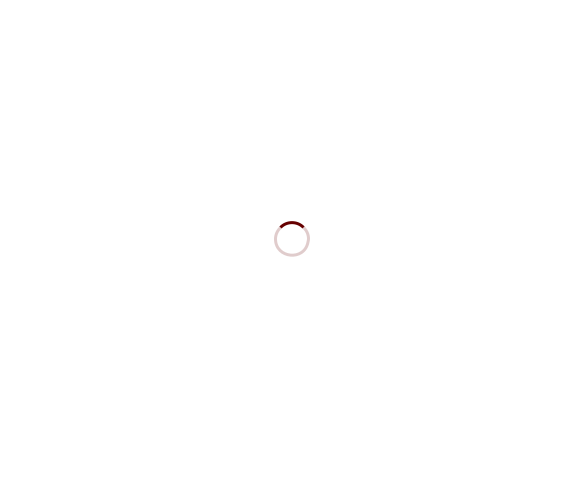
#include <cairo/cairo.h>
#include <math.h>
#include <stddef.h>

static cairo_t *cr;

static void rgb(unsigned color)
{
	cairo_set_source_rgb(cr, (color >> 16) / 255.0, (color >> 8 & 255) / 255.0, (color & 255) / 255.0);
}

int main(void) {
	cairo_surface_t *surface = cairo_image_surface_create(CAIRO_FORMAT_RGB24, 583, 478);
	cr = cairo_create(surface);
	cairo_font_options_t *options = cairo_font_options_create();
	cairo_font_options_set_hint_metrics(options, CAIRO_HINT_METRICS_OFF);
	cairo_font_options_set_hint_style(options, CAIRO_HINT_STYLE_NONE);
	cairo_set_font_options(cr, options);
	cairo_set_miter_limit(cr, 4);
	rgb(0xffffff);
	cairo_paint(cr);
	cairo_new_path(cr);
	cairo_move_to(cr, 280.5, 227.5);
	cairo_curve_to(cr, 286.5, 221, 297.5, 221, 303.5, 227.5);
	rgb(0x660000);
	cairo_set_line_width(cr, 3);
	cairo_stroke(cr);
	cairo_new_path(cr);
	cairo_move_to(cr, 303.5, 227.5);
	cairo_curve_to(cr, 307.5, 231, 309.5, 237, 308, 242);
	cairo_curve_to(cr, 304.5, 261.5, 275.5, 258.5, 275.5, 239);
	cairo_curve_to(cr, 275.5, 234.5, 277.5, 230.5, 280.5, 227.5);
	cairo_set_source_rgba(cr, 0.4, 0, 0, 0.2);
	cairo_stroke(cr);
	cairo_surface_write_to_png(surface, "page.png");
	cairo_font_options_destroy(options);
	cairo_destroy(cr);
	cairo_surface_destroy(surface);
	return 0;
}
